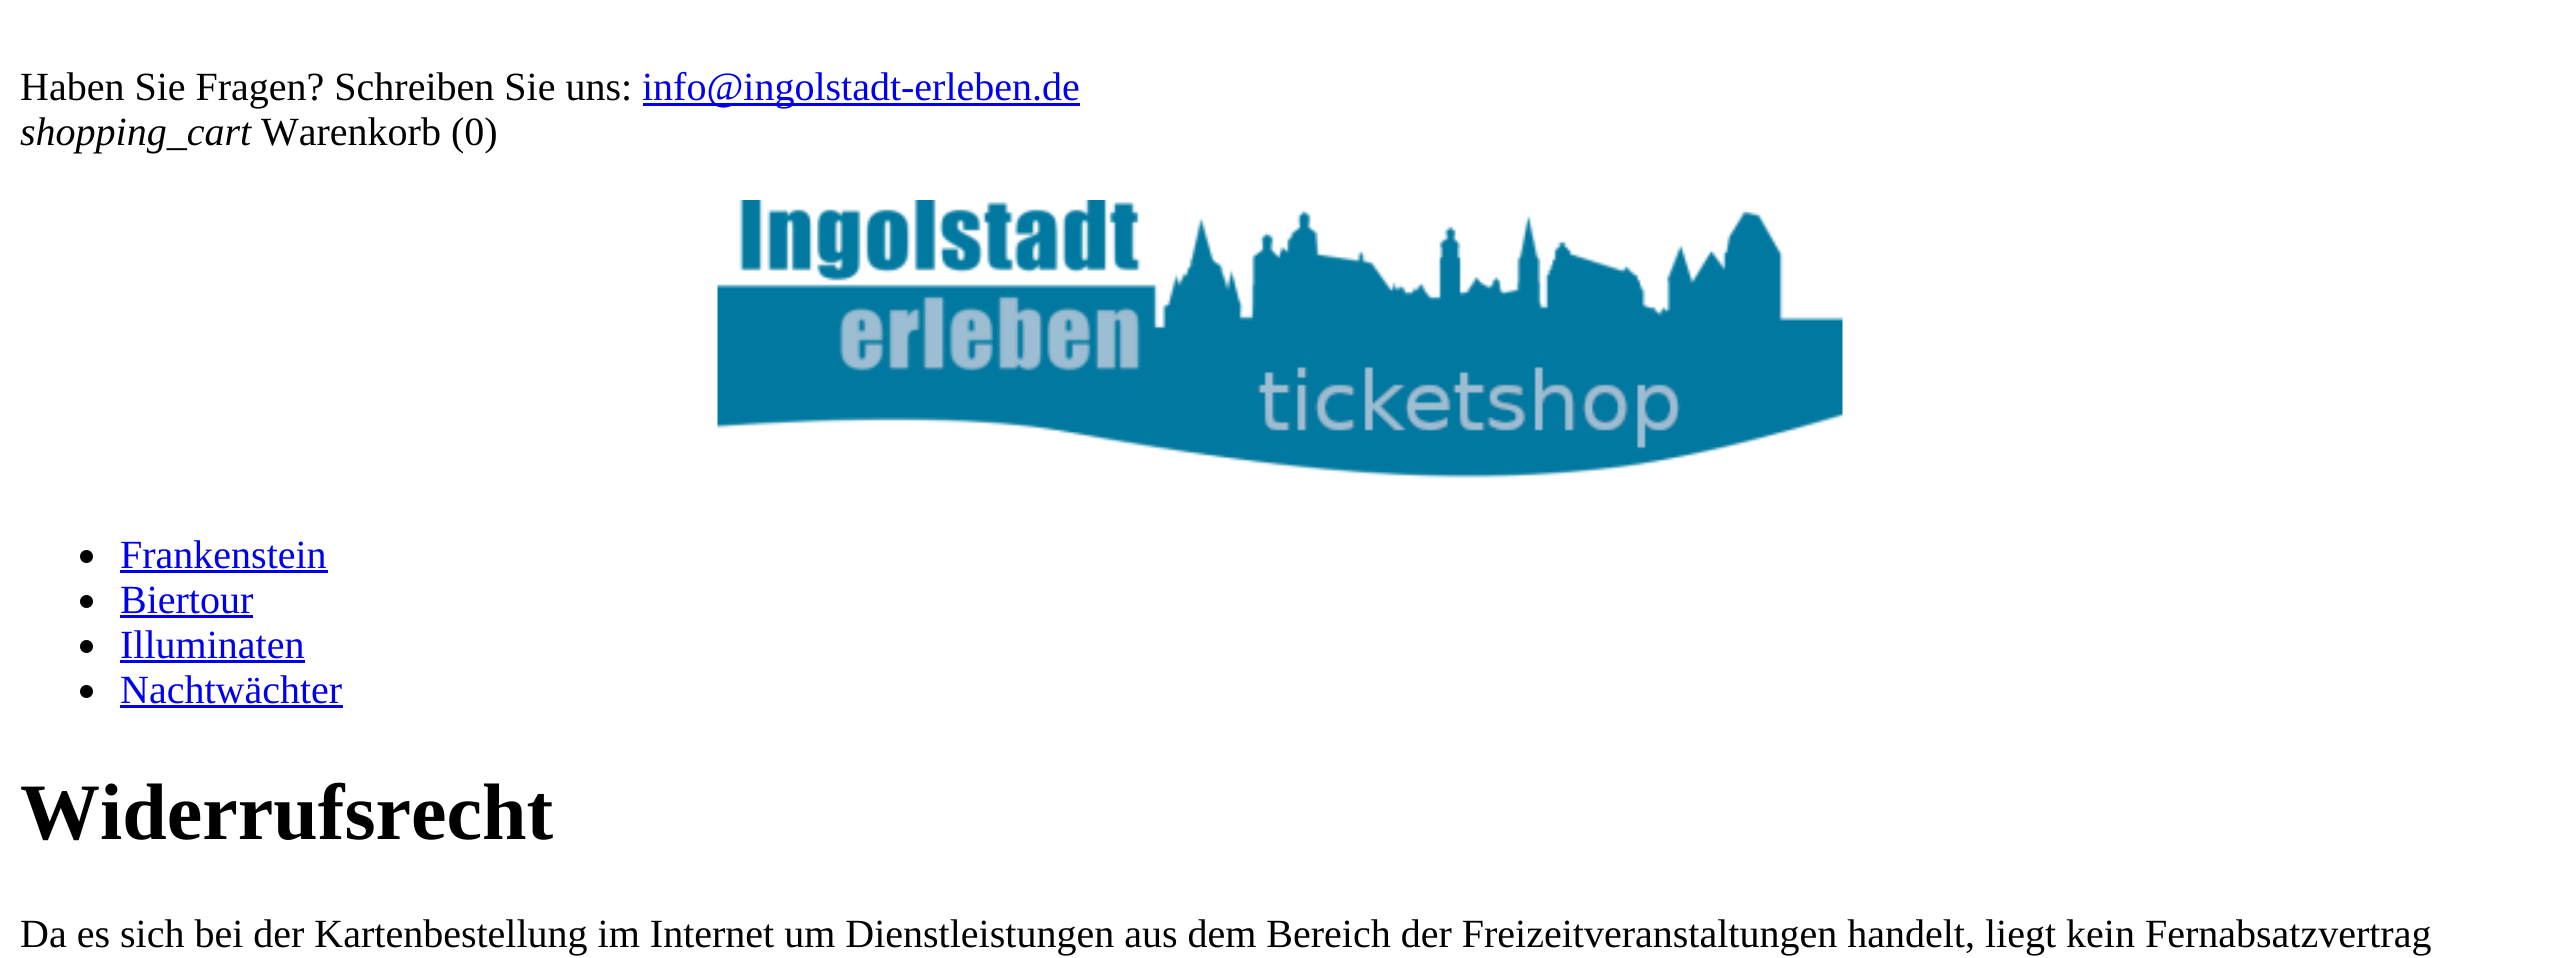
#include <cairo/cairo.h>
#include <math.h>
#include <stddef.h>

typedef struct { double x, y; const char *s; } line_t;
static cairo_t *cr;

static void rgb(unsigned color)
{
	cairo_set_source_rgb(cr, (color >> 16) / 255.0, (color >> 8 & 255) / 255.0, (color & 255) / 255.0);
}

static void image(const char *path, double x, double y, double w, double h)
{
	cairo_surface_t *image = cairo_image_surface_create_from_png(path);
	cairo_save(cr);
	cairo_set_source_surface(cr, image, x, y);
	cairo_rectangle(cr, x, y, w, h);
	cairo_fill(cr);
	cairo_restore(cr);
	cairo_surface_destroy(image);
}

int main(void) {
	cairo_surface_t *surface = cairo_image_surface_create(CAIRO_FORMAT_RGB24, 2557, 958);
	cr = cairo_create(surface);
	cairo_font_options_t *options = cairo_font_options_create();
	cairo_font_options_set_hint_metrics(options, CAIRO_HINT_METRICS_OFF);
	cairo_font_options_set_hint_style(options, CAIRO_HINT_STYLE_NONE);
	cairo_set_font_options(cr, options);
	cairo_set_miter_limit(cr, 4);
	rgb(0xffffff);
	cairo_paint(cr);
	rgb(0x0000ee);
	cairo_rectangle(cr, 643, 103, 437, 3);
	cairo_fill(cr);
	image("img/1.png", 717, 200, 1126, 279);
	rgb(0x000000);
	cairo_arc(cr, 86.5, 556.5, 6.5, 0, 2 * M_PI);
	cairo_fill(cr);
	rgb(0x0000ee);
	cairo_rectangle(cr, 120, 570, 208, 3);
	cairo_fill(cr);
	rgb(0x000000);
	cairo_arc(cr, 86.5, 601.5, 6.5, 0, 2 * M_PI);
	cairo_fill(cr);
	rgb(0x0000ee);
	cairo_rectangle(cr, 120, 615, 133, 3);
	cairo_fill(cr);
	rgb(0x000000);
	cairo_arc(cr, 86.5, 646.5, 6.5, 0, 2 * M_PI);
	cairo_fill(cr);
	rgb(0x0000ee);
	cairo_rectangle(cr, 120, 660, 185, 3);
	cairo_fill(cr);
	rgb(0x000000);
	cairo_arc(cr, 86.5, 691.5, 6.5, 0, 2 * M_PI);
	cairo_fill(cr);
	rgb(0x0000ee);
	cairo_rectangle(cr, 120, 705, 223, 3);
	cairo_fill(cr);
	cairo_select_font_face(cr, "Liberation Serif", CAIRO_FONT_SLANT_NORMAL, CAIRO_FONT_WEIGHT_NORMAL);
	cairo_set_font_size(cr, 40);
	rgb(0x000000);
	cairo_move_to(cr, 20, 100);
	cairo_show_text(cr, "Haben Sie Fragen? Schreiben Sie uns:");
	rgb(0x0000ee);
	cairo_move_to(cr, 642, 100);
	cairo_show_text(cr, "info@ingolstadt-erleben.de");
	cairo_select_font_face(cr, "Liberation Serif", CAIRO_FONT_SLANT_ITALIC, CAIRO_FONT_WEIGHT_NORMAL);
	rgb(0x000000);
	cairo_move_to(cr, 20, 145);
	cairo_show_text(cr, "shopping_cart");
	cairo_select_font_face(cr, "Liberation Serif", CAIRO_FONT_SLANT_NORMAL, CAIRO_FONT_WEIGHT_NORMAL);
	cairo_move_to(cr, 261, 145);
	cairo_show_text(cr, "Warenkorb (0)");
	rgb(0x0000ee);
	{
		static const line_t items[] = {
			{120, 568, "Frankenstein"},
			{120, 613, "Biertour"},
			{120, 658, "Illuminaten"},
			{120, 703, "Nachtwächter"},
		};
		for (size_t i = 0; i < sizeof items / sizeof *items; i++) {
			cairo_move_to(cr, items[i].x, items[i].y);
			cairo_show_text(cr, items[i].s);
		}
	}
	cairo_select_font_face(cr, "Liberation Serif", CAIRO_FONT_SLANT_NORMAL, CAIRO_FONT_WEIGHT_BOLD);
	cairo_set_font_size(cr, 80);
	rgb(0x000000);
	cairo_move_to(cr, 20, 839);
	cairo_show_text(cr, "Widerrufsrecht");
	cairo_select_font_face(cr, "Liberation Serif", CAIRO_FONT_SLANT_NORMAL, CAIRO_FONT_WEIGHT_NORMAL);
	cairo_set_font_size(cr, 40);
	cairo_move_to(cr, 20, 947);
	cairo_show_text(cr, "Da es sich bei der Kartenbestellung im Internet um Dienstleistungen aus dem Bereich der Freizeitveranstaltungen handelt, liegt kein Fernabsatzvertrag");
	cairo_surface_write_to_png(surface, "page.png");
	cairo_font_options_destroy(options);
	cairo_destroy(cr);
	cairo_surface_destroy(surface);
	return 0;
}
